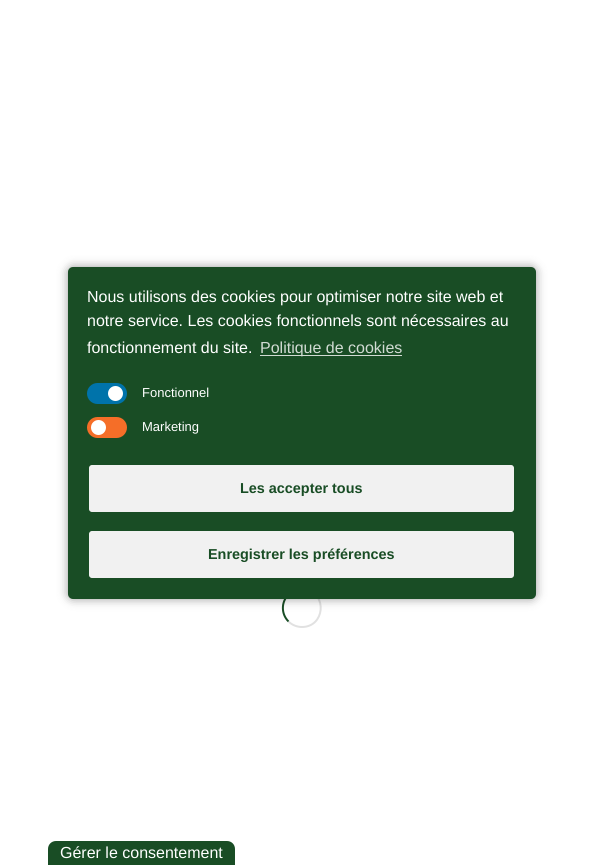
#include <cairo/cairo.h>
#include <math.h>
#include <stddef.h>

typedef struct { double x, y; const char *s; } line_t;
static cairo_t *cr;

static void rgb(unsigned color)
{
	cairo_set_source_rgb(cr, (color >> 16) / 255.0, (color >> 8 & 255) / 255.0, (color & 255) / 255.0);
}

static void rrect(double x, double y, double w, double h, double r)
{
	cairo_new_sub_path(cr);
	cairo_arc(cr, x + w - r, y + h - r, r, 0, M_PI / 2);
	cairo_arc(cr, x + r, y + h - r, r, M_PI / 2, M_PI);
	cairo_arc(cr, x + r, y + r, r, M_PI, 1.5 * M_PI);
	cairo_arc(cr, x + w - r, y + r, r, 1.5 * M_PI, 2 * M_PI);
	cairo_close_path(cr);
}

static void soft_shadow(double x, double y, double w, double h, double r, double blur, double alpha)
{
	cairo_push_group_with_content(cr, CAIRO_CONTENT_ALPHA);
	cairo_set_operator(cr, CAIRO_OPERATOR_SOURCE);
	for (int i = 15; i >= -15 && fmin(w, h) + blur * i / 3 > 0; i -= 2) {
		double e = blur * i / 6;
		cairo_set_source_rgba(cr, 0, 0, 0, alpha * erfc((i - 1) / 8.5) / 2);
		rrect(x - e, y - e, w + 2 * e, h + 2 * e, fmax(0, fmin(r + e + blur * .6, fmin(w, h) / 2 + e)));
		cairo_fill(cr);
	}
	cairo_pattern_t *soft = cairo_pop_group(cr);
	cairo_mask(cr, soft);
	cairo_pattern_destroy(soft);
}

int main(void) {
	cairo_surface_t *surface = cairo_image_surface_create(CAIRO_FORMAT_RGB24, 603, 865);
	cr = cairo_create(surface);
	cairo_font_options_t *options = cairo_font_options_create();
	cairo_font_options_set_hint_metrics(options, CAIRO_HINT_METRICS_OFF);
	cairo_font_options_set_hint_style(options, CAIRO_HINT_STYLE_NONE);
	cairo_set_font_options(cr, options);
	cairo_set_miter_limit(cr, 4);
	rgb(0xffffff);
	cairo_paint(cr);
	cairo_new_path(cr);
	cairo_move_to(cr, 288.5, 594.5);
	cairo_curve_to(cr, 293, 590, 299.5, 588, 305.5, 589.5);
	cairo_curve_to(cr, 328, 594, 324.5, 627, 302, 627);
	cairo_curve_to(cr, 297, 627, 292, 625, 288.5, 621.5);
	rgb(0xe1e1e1);
	cairo_stroke(cr);
	cairo_new_path(cr);
	cairo_move_to(cr, 288.5, 621.5);
	cairo_curve_to(cr, 281, 614, 281, 602, 288.5, 594.5);
	rgb(0x194d25);
	cairo_stroke(cr);
	rgb(0x000000);
	soft_shadow(68, 267, 468, 332, 5, 5, 0.4);
	rgb(0x194d25);
	rrect(68, 267, 468, 332, 5);
	cairo_fill(cr);
	rgb(0xd1dbd3);
	cairo_rectangle(cr, 260, 355, 142, 1);
	cairo_fill(cr);
	rgb(0x0073aa);
	rrect(87, 383, 40, 21, 10.5);
	cairo_fill(cr);
	rgb(0xffffff);
	cairo_arc(cr, 115.5, 393.5, 7.5, 0, 2 * M_PI);
	cairo_fill(cr);
	rgb(0xf56e28);
	rrect(87, 417, 40, 21, 10.5);
	cairo_fill(cr);
	rgb(0xffffff);
	cairo_arc(cr, 98.5, 427.5, 7.5, 0, 2 * M_PI);
	cairo_fill(cr);
	rgb(0xf1f1f1);
	rrect(88, 464, 427, 49, 4);
	cairo_fill_preserve(cr);
	rgb(0x194d25);
	cairo_stroke(cr);
	rgb(0xf1f1f1);
	rrect(88, 530, 427, 49, 4);
	cairo_fill_preserve(cr);
	rgb(0x194d25);
	cairo_stroke(cr);
	cairo_new_path(cr);
	cairo_move_to(cr, 56, 841);
	cairo_line_to(cr, 227, 841);
	cairo_curve_to(cr, 231.5, 841, 235, 844.5, 235, 849);
	cairo_line_to(cr, 235, 865);
	cairo_line_to(cr, 48, 865);
	cairo_line_to(cr, 48, 849);
	cairo_curve_to(cr, 48, 844.5, 51.5, 841, 56, 841);
	cairo_close_path(cr);
	cairo_fill(cr);
	cairo_select_font_face(cr, "Liberation Sans", CAIRO_FONT_SLANT_NORMAL, CAIRO_FONT_WEIGHT_NORMAL);
	cairo_set_font_size(cr, 16);
	rgb(0xffffff);
	{
		static const line_t items[] = {
			{87, 302, "Nous utilisons des cookies pour optimiser notre site web et"},
			{87, 326, "notre service. Les cookies fonctionnels sont nécessaires au"},
			{87, 353, "fonctionnement du site."},
		};
		for (size_t i = 0; i < sizeof items / sizeof *items; i++) {
			cairo_move_to(cr, items[i].x, items[i].y);
			cairo_show_text(cr, items[i].s);
		}
	}
	rgb(0xd1dbd3);
	cairo_move_to(cr, 260, 353);
	cairo_show_text(cr, "Politique de cookies");
	cairo_set_font_size(cr, 13);
	rgb(0xffffff);
	cairo_move_to(cr, 142, 397);
	cairo_show_text(cr, "Fonctionnel");
	cairo_move_to(cr, 142, 431);
	cairo_show_text(cr, "Marketing");
	cairo_select_font_face(cr, "Liberation Sans", CAIRO_FONT_SLANT_NORMAL, CAIRO_FONT_WEIGHT_BOLD);
	cairo_set_font_size(cr, 14.4);
	rgb(0x194d25);
	cairo_move_to(cr, 240, 493);
	cairo_show_text(cr, "Les accepter tous");
	cairo_move_to(cr, 208, 559);
	cairo_show_text(cr, "Enregistrer les préférences");
	cairo_select_font_face(cr, "Liberation Sans", CAIRO_FONT_SLANT_NORMAL, CAIRO_FONT_WEIGHT_NORMAL);
	cairo_set_font_size(cr, 16);
	rgb(0xffffff);
	cairo_move_to(cr, 60, 858);
	cairo_show_text(cr, "Gérer le consentement");
	cairo_surface_write_to_png(surface, "page.png");
	cairo_font_options_destroy(options);
	cairo_destroy(cr);
	cairo_surface_destroy(surface);
	return 0;
}
